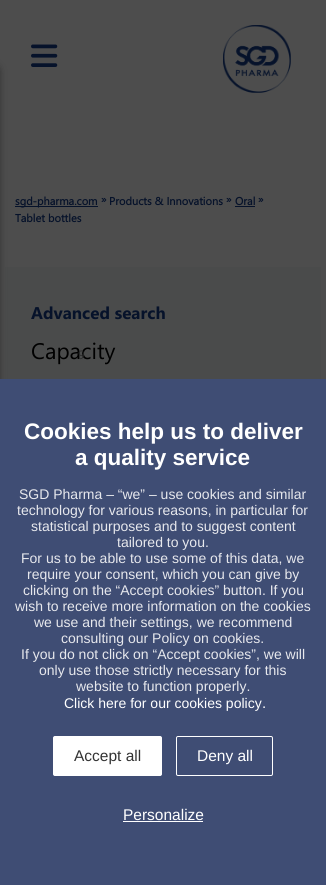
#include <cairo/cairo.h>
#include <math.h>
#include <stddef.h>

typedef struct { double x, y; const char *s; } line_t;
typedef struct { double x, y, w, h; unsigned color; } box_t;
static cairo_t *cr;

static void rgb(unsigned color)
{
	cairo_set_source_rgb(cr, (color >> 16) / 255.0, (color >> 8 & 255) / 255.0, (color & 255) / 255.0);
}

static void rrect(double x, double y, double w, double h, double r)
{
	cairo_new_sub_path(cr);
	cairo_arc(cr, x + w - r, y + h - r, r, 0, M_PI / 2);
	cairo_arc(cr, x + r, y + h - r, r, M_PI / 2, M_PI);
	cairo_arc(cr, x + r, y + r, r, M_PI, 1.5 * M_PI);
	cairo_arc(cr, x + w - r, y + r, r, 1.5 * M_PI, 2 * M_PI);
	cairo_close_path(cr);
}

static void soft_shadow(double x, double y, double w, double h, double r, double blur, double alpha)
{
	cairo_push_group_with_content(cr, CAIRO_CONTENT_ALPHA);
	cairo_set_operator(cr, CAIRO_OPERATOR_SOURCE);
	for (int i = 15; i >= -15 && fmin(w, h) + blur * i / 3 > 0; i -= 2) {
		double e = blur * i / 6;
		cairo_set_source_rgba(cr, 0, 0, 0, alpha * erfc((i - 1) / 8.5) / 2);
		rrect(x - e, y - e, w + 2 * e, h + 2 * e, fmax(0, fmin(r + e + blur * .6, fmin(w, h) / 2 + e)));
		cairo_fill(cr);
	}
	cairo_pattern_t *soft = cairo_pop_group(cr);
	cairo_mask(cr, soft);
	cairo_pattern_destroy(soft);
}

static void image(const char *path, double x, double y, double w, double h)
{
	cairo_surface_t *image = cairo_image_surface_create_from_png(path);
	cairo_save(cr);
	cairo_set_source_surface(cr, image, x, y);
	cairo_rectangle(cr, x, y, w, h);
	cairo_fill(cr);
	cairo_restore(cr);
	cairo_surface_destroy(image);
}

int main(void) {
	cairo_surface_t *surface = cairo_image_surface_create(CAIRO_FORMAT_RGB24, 326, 885);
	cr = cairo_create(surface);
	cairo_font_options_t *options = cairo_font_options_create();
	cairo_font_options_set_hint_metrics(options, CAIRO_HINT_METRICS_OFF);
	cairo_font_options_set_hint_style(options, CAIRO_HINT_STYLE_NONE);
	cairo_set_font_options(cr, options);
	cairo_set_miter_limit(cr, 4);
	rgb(0x4d4d4d);
	cairo_paint(cr);
	image("img/1.png", 31, 44, 27, 23);
	image("img/2.png", 223, 25, 68, 68);
	rgb(0x4a4b4b);
	cairo_rectangle(cr, 5, 267, 316, 112);
	cairo_fill(cr);
	rgb(0x1b1b1b);
	soft_shadow(-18, 65, 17, 759, 6, 4, 0.65);
	{
		static const box_t items[] = {
			{15, 206, 83, 1, 0x06122a},
			{235, 206, 20, 1, 0x06122a},
			{0, 379, 326, 506, 0x3f4d74},
		};
		for (size_t i = 0; i < sizeof items / sizeof *items; i++) {
			rgb(items[i].color);
			cairo_rectangle(cr, items[i].x, items[i].y, items[i].w, items[i].h);
			cairo_fill(cr);
		}
	}
	rgb(0xffffff);
	rrect(53.5, 736.5, 108, 39, 1.5);
	cairo_fill_preserve(cr);
	cairo_set_line_width(cr, 1);
	cairo_stroke(cr);
	rrect(176.5, 736.5, 96, 39, 1.5);
	cairo_stroke(cr);
	cairo_rectangle(cr, 123, 821, 80, 1);
	cairo_fill(cr);
	cairo_select_font_face(cr, "Segoe UI", CAIRO_FONT_SLANT_NORMAL, CAIRO_FONT_WEIGHT_BOLD);
	cairo_set_font_size(cr, 11);
	rgb(0x06122a);
	{
		static const line_t items[] = {
			{15, 205, "sgd-pharma.com"},
			{101, 203, "»"},
			{109, 205, "Products & Innovations"},
			{226, 203, "»"},
			{235, 205, "Oral"},
			{258, 203, "»"},
			{15, 222, "Tablet bottles"},
		};
		for (size_t i = 0; i < sizeof items / sizeof *items; i++) {
			cairo_move_to(cr, items[i].x, items[i].y);
			cairo_show_text(cr, items[i].s);
		}
	}
	cairo_select_font_face(cr, "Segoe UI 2", CAIRO_FONT_SLANT_NORMAL, CAIRO_FONT_WEIGHT_BOLD);
	cairo_set_font_size(cr, 17);
	cairo_move_to(cr, 31, 319);
	cairo_show_text(cr, "Advanced search");
	cairo_select_font_face(cr, "Segoe UI", CAIRO_FONT_SLANT_NORMAL, CAIRO_FONT_WEIGHT_NORMAL);
	cairo_set_font_size(cr, 22.5);
	rgb(0x000000);
	cairo_move_to(cr, 31, 359);
	cairo_show_text(cr, "Capacity");
	cairo_set_font_size(cr, 12);
	rgb(0x292a2a);
	cairo_move_to(cr, 78, 359);
	cairo_show_text(cr, "9");
	cairo_select_font_face(cr, "Liberation Sans", CAIRO_FONT_SLANT_NORMAL, CAIRO_FONT_WEIGHT_BOLD);
	cairo_set_font_size(cr, 22.5);
	rgb(0xffffff);
	cairo_move_to(cr, 24, 439);
	cairo_show_text(cr, "Cookies help us to deliver");
	cairo_move_to(cr, 75, 465);
	cairo_show_text(cr, "a quality service");
	cairo_select_font_face(cr, "Liberation Sans", CAIRO_FONT_SLANT_NORMAL, CAIRO_FONT_WEIGHT_NORMAL);
	cairo_set_font_size(cr, 14);
	rgb(0xe7e8ed);
	{
		static const line_t items[] = {
			{19, 499, "SGD Pharma – “we” – use cookies and similar"},
			{17, 515, "technology for various reasons, in particular for"},
			{31, 531, "statistical purposes and to suggest content"},
			{117, 547, "tailored to you."},
			{21, 563, "For us to be able to use some of this data, we"},
			{27, 579, "require your consent, which you can give by"},
			{23, 595, "clicking on the “Accept cookies” button. If you"},
			{15, 611, "wish to receive more information on the cookies"},
			{34, 627, "we use and their settings, we recommend"},
			{61, 643, "consulting our Policy on cookies."},
			{21, 659, "If you do not click on “Accept cookies”, we will"},
			{39, 675, "only use those strictly necessary for this"},
			{76, 691, "website to function properly."},
		};
		for (size_t i = 0; i < sizeof items / sizeof *items; i++) {
			cairo_move_to(cr, items[i].x, items[i].y);
			cairo_show_text(cr, items[i].s);
		}
	}
	rgb(0xffffff);
	cairo_move_to(cr, 64, 708);
	cairo_show_text(cr, "Click here for our cookies policy");
	cairo_set_font_size(cr, 15);
	cairo_move_to(cr, 262, 708);
	cairo_show_text(cr, ".");
	cairo_set_font_size(cr, 15.5);
	rgb(0x333333);
	cairo_move_to(cr, 74, 761);
	cairo_show_text(cr, "Accept all");
	rgb(0xffffff);
	cairo_move_to(cr, 197, 761);
	cairo_show_text(cr, "Deny all");
	cairo_move_to(cr, 123, 820);
	cairo_show_text(cr, "Personalize");
	cairo_surface_write_to_png(surface, "page.png");
	cairo_font_options_destroy(options);
	cairo_destroy(cr);
	cairo_surface_destroy(surface);
	return 0;
}
